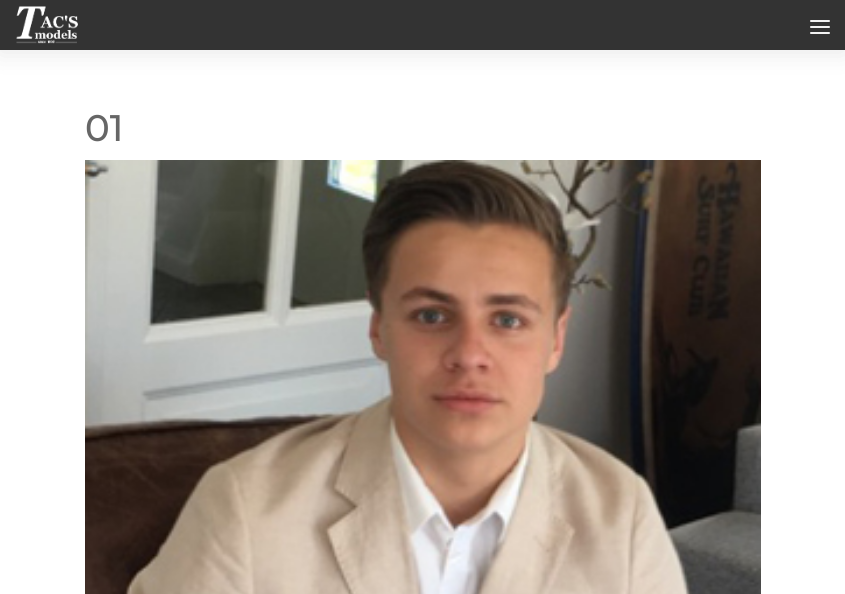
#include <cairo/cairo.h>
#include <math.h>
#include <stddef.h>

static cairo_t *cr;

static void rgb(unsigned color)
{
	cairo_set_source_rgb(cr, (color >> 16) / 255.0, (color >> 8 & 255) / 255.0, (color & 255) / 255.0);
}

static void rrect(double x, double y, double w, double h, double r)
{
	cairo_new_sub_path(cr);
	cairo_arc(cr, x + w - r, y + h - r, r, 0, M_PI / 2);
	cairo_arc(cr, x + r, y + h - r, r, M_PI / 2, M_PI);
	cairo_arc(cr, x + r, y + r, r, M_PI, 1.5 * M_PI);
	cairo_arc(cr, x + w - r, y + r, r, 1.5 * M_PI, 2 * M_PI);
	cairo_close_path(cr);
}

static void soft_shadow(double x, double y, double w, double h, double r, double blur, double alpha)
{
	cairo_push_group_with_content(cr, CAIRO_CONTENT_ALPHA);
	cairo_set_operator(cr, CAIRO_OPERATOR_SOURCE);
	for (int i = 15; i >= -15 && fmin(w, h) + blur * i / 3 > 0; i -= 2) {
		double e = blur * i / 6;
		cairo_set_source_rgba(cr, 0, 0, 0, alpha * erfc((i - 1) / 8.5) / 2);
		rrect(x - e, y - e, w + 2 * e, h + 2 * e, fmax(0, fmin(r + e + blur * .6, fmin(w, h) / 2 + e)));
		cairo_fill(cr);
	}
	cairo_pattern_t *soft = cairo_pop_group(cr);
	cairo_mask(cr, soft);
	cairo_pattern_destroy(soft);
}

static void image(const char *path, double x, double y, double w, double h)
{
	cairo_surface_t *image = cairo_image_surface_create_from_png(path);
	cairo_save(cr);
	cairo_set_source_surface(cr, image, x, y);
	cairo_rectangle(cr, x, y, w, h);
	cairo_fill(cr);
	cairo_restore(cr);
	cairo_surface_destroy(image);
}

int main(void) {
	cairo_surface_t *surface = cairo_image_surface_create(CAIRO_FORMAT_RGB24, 845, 594);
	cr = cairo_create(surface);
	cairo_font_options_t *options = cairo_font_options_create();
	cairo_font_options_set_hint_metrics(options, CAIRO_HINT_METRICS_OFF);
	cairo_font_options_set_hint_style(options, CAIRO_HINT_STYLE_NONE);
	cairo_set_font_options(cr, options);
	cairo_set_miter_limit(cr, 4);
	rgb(0xffffff);
	cairo_paint(cr);
	rgb(0x000000);
	soft_shadow(0, 2, 845, 50, 0, 12.5, 0.1);
	rgb(0x333333);
	cairo_rectangle(cr, 0, 0, 845, 50);
	cairo_fill(cr);
	image("img/1.png", 16, 6, 62, 38);
	rgb(0xf2f2f2);
	rrect(810, 32, 20, 2, 1);
	cairo_fill(cr);
	rrect(810, 20, 20, 2, 1);
	cairo_fill(cr);
	rrect(810, 26, 20, 2, 1);
	cairo_fill(cr);
	image("img/2.png", 85, 160, 676, 434);
	cairo_select_font_face(cr, "Montserrat Medium", CAIRO_FONT_SLANT_NORMAL, CAIRO_FONT_WEIGHT_NORMAL);
	cairo_set_font_size(cr, 37);
	rgb(0x666666);
	cairo_move_to(cr, 85, 141);
	cairo_show_text(cr, "01");
	cairo_surface_write_to_png(surface, "page.png");
	cairo_font_options_destroy(options);
	cairo_destroy(cr);
	cairo_surface_destroy(surface);
	return 0;
}
